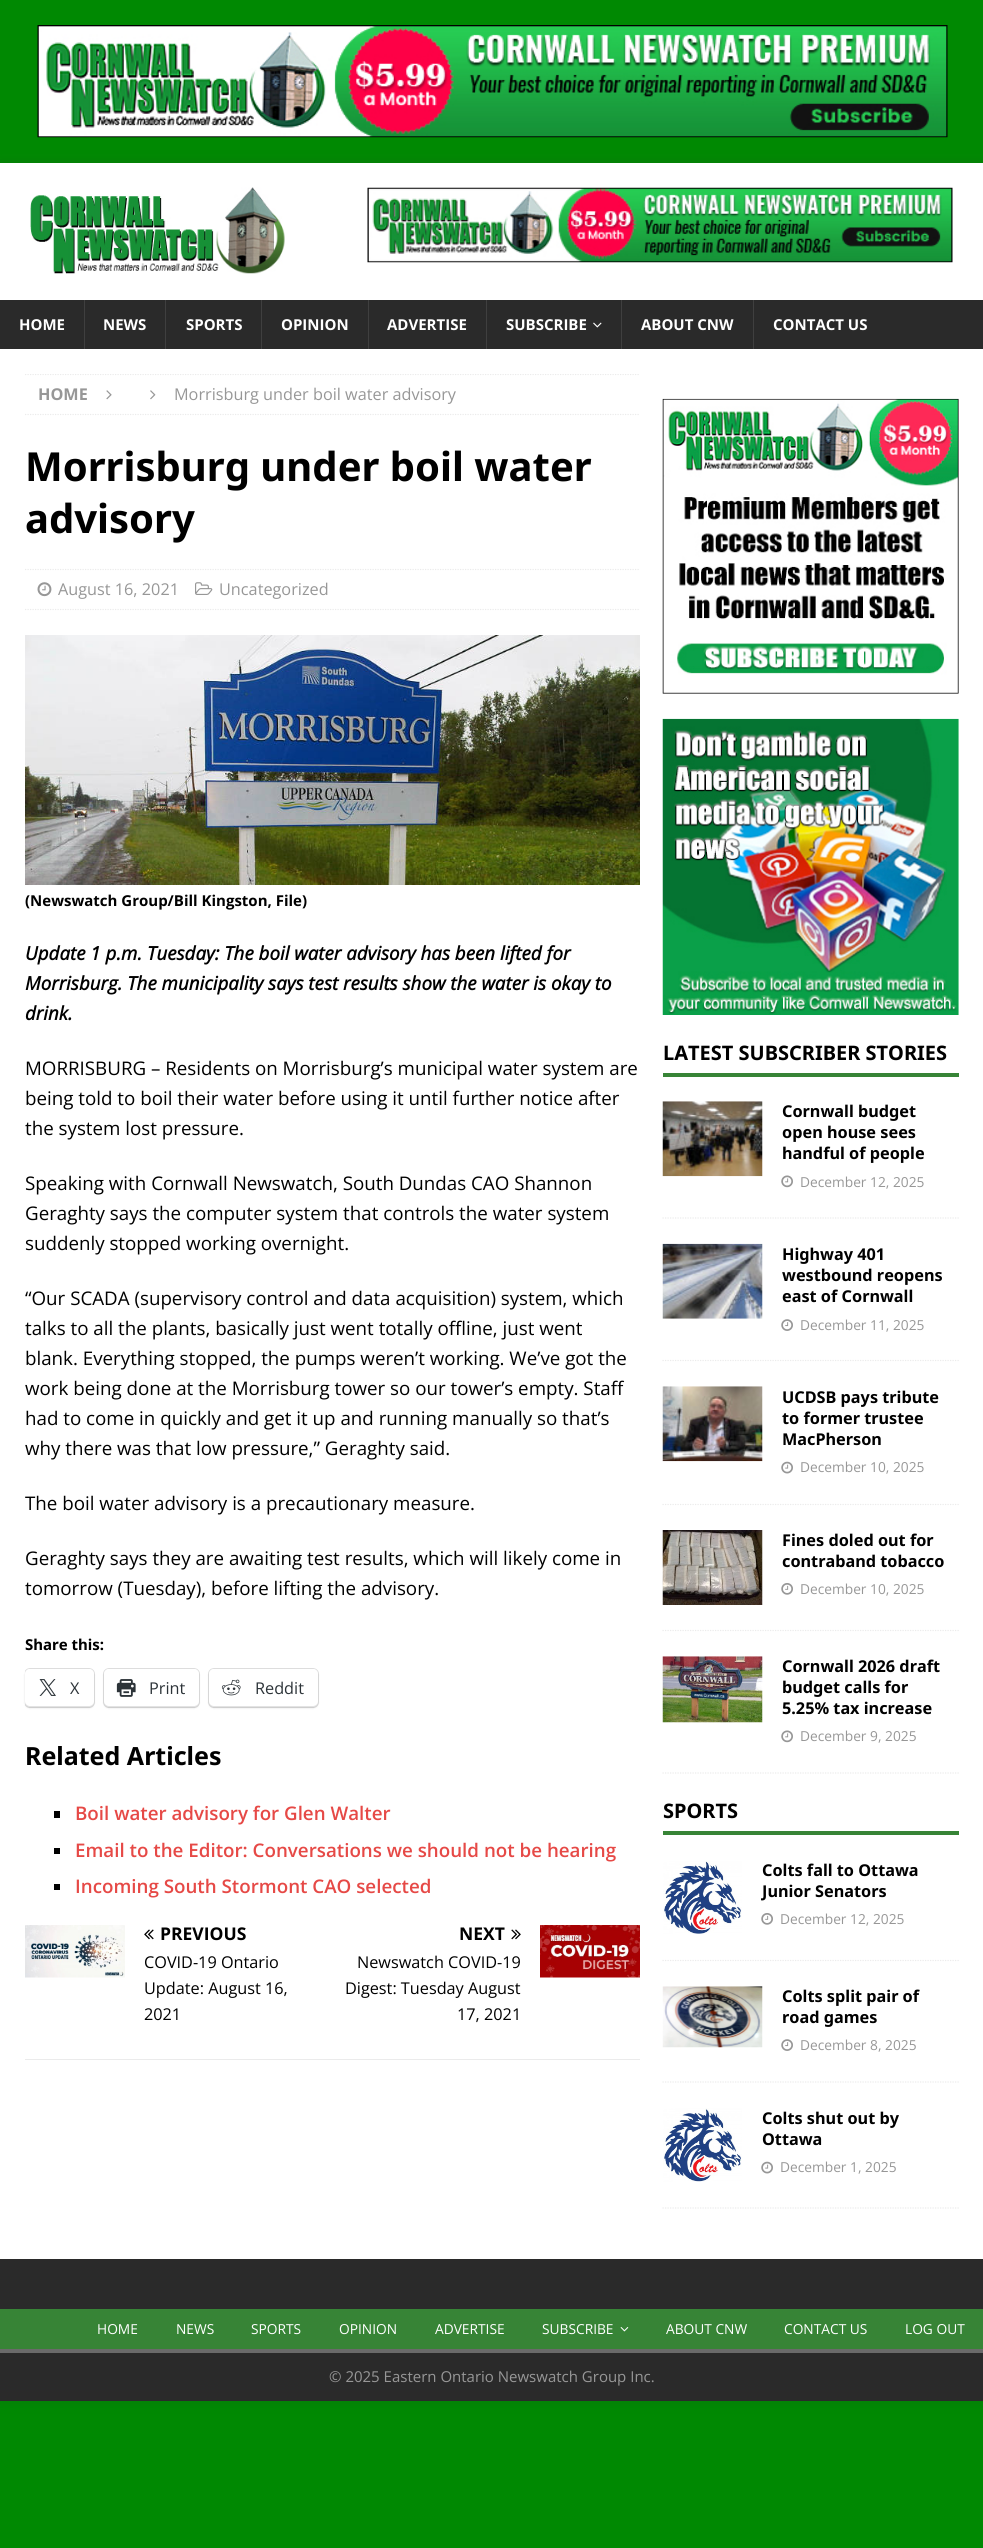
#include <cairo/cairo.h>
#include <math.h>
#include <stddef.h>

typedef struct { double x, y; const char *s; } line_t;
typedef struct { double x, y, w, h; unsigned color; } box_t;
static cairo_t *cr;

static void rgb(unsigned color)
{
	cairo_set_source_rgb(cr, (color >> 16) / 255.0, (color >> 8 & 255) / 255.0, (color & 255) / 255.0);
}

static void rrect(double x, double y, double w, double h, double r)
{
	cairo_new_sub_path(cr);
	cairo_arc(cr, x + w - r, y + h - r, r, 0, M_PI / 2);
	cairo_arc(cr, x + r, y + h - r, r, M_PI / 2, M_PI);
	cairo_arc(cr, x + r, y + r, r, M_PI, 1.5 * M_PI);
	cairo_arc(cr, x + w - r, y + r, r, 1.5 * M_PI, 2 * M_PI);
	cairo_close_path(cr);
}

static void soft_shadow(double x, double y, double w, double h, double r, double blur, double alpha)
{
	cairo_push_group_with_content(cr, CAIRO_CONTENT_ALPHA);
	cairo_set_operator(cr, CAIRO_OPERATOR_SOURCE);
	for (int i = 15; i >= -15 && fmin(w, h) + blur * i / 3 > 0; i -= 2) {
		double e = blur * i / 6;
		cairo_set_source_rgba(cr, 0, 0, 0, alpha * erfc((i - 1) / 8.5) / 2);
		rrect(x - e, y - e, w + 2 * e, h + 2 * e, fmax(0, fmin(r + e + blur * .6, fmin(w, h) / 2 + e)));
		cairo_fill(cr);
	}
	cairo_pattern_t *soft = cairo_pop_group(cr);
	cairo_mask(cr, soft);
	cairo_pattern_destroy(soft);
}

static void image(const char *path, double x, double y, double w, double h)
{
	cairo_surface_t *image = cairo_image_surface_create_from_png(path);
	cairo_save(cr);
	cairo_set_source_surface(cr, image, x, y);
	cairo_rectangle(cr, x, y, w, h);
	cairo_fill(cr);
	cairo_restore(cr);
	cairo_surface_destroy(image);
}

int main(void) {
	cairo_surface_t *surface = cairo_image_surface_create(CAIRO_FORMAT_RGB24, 983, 2548);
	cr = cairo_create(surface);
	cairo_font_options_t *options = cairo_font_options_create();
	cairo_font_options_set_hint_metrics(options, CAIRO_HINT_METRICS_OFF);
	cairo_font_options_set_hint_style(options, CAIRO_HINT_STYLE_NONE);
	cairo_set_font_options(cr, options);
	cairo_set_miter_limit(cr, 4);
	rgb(0x008902);
	cairo_paint(cr);
	image("img/1.png", 37, 25, 911, 113);
	rgb(0x323232);
	soft_shadow(0, 163, 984, 2238, 0, 6, 0.17);
	rgb(0xffffff);
	cairo_rectangle(cr, 0, 163, 983, 137);
	cairo_fill(cr);
	image("img/2.png", 30, 187, 255, 87);
	image("img/3.png", 367, 187, 586, 76);
	{
		static const box_t items[] = {
			{0, 300, 983, 49, 0x2a2a2a},
			{84, 300, 1, 49, 0x3f3f3f},
			{165, 300, 1, 49, 0x3f3f3f},
			{261, 300, 1, 49, 0x3f3f3f},
			{368, 300, 1, 49, 0x3f3f3f},
			{486, 300, 1, 49, 0x3f3f3f},
		};
		for (size_t i = 0; i < sizeof items / sizeof *items; i++) {
			rgb(items[i].color);
			cairo_rectangle(cr, items[i].x, items[i].y, items[i].w, items[i].h);
			cairo_fill(cr);
		}
	}
	image("img/4.png", 593, 322, 9, 6);
	{
		static const box_t items[] = {
			{621, 300, 1, 49, 0x3f3f3f},
			{753, 300, 1, 49, 0x3f3f3f},
			{0, 349, 983, 1910, 0xffffff},
		};
		for (size_t i = 0; i < sizeof items / sizeof *items; i++) {
			rgb(items[i].color);
			cairo_rectangle(cr, items[i].x, items[i].y, items[i].w, items[i].h);
			cairo_fill(cr);
		}
	}
	cairo_save(cr);
	cairo_rectangle(cr, 25, 374, 615, 1717);
	cairo_clip(cr);
	cairo_new_path(cr);
	cairo_move_to(cr, 25, 374.5);
	cairo_line_to(cr, 640, 374.5);
	rgb(0xebebeb);
	cairo_set_line_width(cr, 1.2);
	cairo_set_dash(cr, (double[]){1.25, 1.25}, 2, 0);
	cairo_stroke(cr);
	cairo_restore(cr);
	cairo_new_path(cr);
	cairo_move_to(cr, 25, 414.5);
	cairo_line_to(cr, 640, 414.5);
	rgb(0xebebeb);
	cairo_set_line_width(cr, 1.2);
	cairo_set_dash(cr, (double[]){1.25, 1.25}, 2, 0);
	cairo_stroke(cr);
	image("img/5.png", 106, 390, 6, 10);
	image("img/6.png", 150, 390, 6, 10);
	cairo_new_path(cr);
	cairo_move_to(cr, 25, 569.5);
	cairo_line_to(cr, 640, 569.5);
	cairo_stroke(cr);
	cairo_new_path(cr);
	cairo_move_to(cr, 25, 609.5);
	cairo_line_to(cr, 640, 609.5);
	cairo_stroke(cr);
	image("img/7.png", 37, 582, 15, 15);
	image("img/8.png", 195, 582, 18, 13);
	image("img/9.png", 25, 635, 615, 250);
	cairo_save(cr);
	cairo_rectangle(cr, 25, 374, 615, 1717);
	cairo_clip(cr);
	rrect(24.5, 1668.5, 70, 39, 5.5);
	rgb(0xe0e0e0);
	cairo_set_line_width(cr, 1);
	cairo_set_dash(cr, NULL, 0, 0);
	cairo_stroke(cr);
	cairo_restore(cr);
	rgb(0x000000);
	soft_shadow(25, 1670, 69, 38, 5, 1, 0.12);
	rgb(0xffffff);
	rrect(25, 1669, 69, 37, 5);
	cairo_fill(cr);
	image("img/10.png", 39, 1679, 17, 17);
	rrect(103.5, 1668.5, 96, 39, 5.5);
	rgb(0xe0e0e0);
	cairo_set_line_width(cr, 1);
	cairo_set_dash(cr, NULL, 0, 0);
	cairo_stroke(cr);
	rgb(0x000000);
	soft_shadow(104, 1670, 95, 38, 5, 1, 0.12);
	rgb(0xffffff);
	rrect(104, 1669, 95, 37, 5);
	cairo_fill(cr);
	image("img/11.png", 116, 1679, 20, 18);
	rrect(208.5, 1668.5, 110, 39, 5.5);
	rgb(0xe0e0e0);
	cairo_stroke(cr);
	rgb(0x000000);
	soft_shadow(209, 1670, 109, 38, 5, 1, 0.12);
	rgb(0xffffff);
	rrect(209, 1669, 109, 37, 5);
	cairo_fill(cr);
	image("img/12.png", 221, 1679, 20, 17);
	{
		static const box_t items[] = {
			{54, 1811, 6, 7, 0x000000},
			{54, 1848, 6, 6, 0x000000},
			{54, 1884, 6, 6, 0x000000},
			{25, 2059, 615, 1, 0xebebeb},
		};
		for (size_t i = 0; i < sizeof items / sizeof *items; i++) {
			rgb(items[i].color);
			cairo_rectangle(cr, items[i].x, items[i].y, items[i].w, items[i].h);
			cairo_fill(cr);
		}
	}
	image("img/13.png", 25, 1925, 100, 53);
	image("img/14.png", 144, 1929, 10, 11);
	image("img/15.png", 511, 1929, 10, 11);
	image("img/16.png", 540, 1925, 100, 53);
	image("img/17.png", 662, 398, 297, 296);
	image("img/18.png", 662, 718, 297, 297);
	rgb(0x378436);
	cairo_rectangle(cr, 663, 1073, 296, 4);
	cairo_fill(cr);
	cairo_new_path(cr);
	cairo_move_to(cr, 662.5, 1218);
	cairo_line_to(cr, 959, 1218);
	rgb(0xebebeb);
	cairo_set_line_width(cr, 1.2);
	cairo_set_dash(cr, (double[]){1.25, 1.25}, 2, 0);
	cairo_stroke(cr);
	image("img/19.png", 662, 1101, 101, 76);
	image("img/20.png", 781, 1175, 12, 13);
	cairo_new_path(cr);
	cairo_move_to(cr, 662.5, 1360.5);
	cairo_line_to(cr, 959, 1360.5);
	cairo_stroke(cr);
	image("img/21.png", 662, 1243, 101, 76);
	image("img/22.png", 781, 1319, 12, 12);
	cairo_new_path(cr);
	cairo_move_to(cr, 662.5, 1504.5);
	cairo_line_to(cr, 959, 1504.5);
	cairo_stroke(cr);
	image("img/23.png", 662, 1386, 101, 76);
	image("img/24.png", 781, 1461, 12, 13);
	cairo_new_path(cr);
	cairo_move_to(cr, 662.5, 1630.5);
	cairo_line_to(cr, 959, 1630.5);
	cairo_stroke(cr);
	image("img/25.png", 662, 1530, 101, 75);
	image("img/26.png", 781, 1583, 12, 12);
	cairo_new_path(cr);
	cairo_move_to(cr, 662.5, 1773);
	cairo_line_to(cr, 959, 1773);
	cairo_stroke(cr);
	image("img/27.png", 662, 1656, 101, 67);
	image("img/20.png", 781, 1730, 12, 13);
	rgb(0x378436);
	cairo_rectangle(cr, 663, 1831, 296, 4);
	cairo_fill(cr);
	cairo_new_path(cr);
	cairo_move_to(cr, 662.5, 1960.5);
	cairo_line_to(cr, 959, 1960.5);
	rgb(0xebebeb);
	cairo_stroke(cr);
	image("img/28.png", 663, 1861, 79, 73);
	image("img/26.png", 761, 1913, 12, 12);
	cairo_new_path(cr);
	cairo_move_to(cr, 662.5, 2082);
	cairo_line_to(cr, 959, 2082);
	cairo_stroke(cr);
	image("img/29.png", 662, 1986, 101, 62);
	image("img/22.png", 781, 2039, 12, 12);
	cairo_new_path(cr);
	cairo_move_to(cr, 662.5, 2208);
	cairo_line_to(cr, 959, 2208);
	cairo_stroke(cr);
	image("img/30.png", 663, 2108, 79, 74);
	image("img/24.png", 761, 2161, 12, 13);
	rgb(0x2a2a2a);
	cairo_rectangle(cr, 0, 2259, 983, 50);
	cairo_fill(cr);
	rgb(0x378436);
	cairo_rectangle(cr, 0, 2309, 983, 40);
	cairo_fill(cr);
	image("img/31.png", 620, 2327, 9, 5);
	rgb(0x2a2a2a);
	cairo_rectangle(cr, 0, 2353, 983, 48);
	cairo_fill(cr);
	rgb(0x6a6a6a);
	cairo_rectangle(cr, 0, 2349, 983, 4);
	cairo_fill(cr);
	cairo_select_font_face(cr, "Open Sans", CAIRO_FONT_SLANT_NORMAL, CAIRO_FONT_WEIGHT_BOLD);
	cairo_set_font_size(cr, 15);
	rgb(0xffffff);
	{
		static const line_t items[] = {
			{19, 330, "HOME"},
			{103, 330, "NEWS"},
			{186, 330, "SPORTS"},
			{281, 330, "OPINION"},
			{387, 330, "ADVERTISE"},
			{506, 330, "SUBSCRIBE"},
			{641, 330, "ABOUT CNW"},
			{773, 330, "CONTACT US"},
		};
		for (size_t i = 0; i < sizeof items / sizeof *items; i++) {
			cairo_move_to(cr, items[i].x, items[i].y);
			cairo_show_text(cr, items[i].s);
		}
	}
	cairo_set_font_size(cr, 16.25);
	rgb(0x979797);
	cairo_move_to(cr, 38, 400);
	cairo_show_text(cr, "HOME");
	cairo_select_font_face(cr, "Open Sans", CAIRO_FONT_SLANT_NORMAL, CAIRO_FONT_WEIGHT_NORMAL);
	cairo_move_to(cr, 174, 400);
	cairo_show_text(cr, "Morrisburg under boil water advisory");
	cairo_select_font_face(cr, "Noto Sans", CAIRO_FONT_SLANT_NORMAL, CAIRO_FONT_WEIGHT_BOLD);
	cairo_set_font_size(cr, 40);
	rgb(0x000000);
	cairo_move_to(cr, 25, 481);
	cairo_show_text(cr, "Morrisburg under boil water");
	cairo_move_to(cr, 25, 533);
	cairo_show_text(cr, "advisory");
	cairo_select_font_face(cr, "Open Sans", CAIRO_FONT_SLANT_NORMAL, CAIRO_FONT_WEIGHT_NORMAL);
	cairo_set_font_size(cr, 16.25);
	rgb(0x979797);
	cairo_move_to(cr, 58, 595);
	cairo_show_text(cr, "August 16, 2021");
	cairo_move_to(cr, 219, 595);
	cairo_show_text(cr, "Uncategorized");
	cairo_select_font_face(cr, "Open Sans", CAIRO_FONT_SLANT_NORMAL, CAIRO_FONT_WEIGHT_BOLD);
	cairo_set_font_size(cr, 15);
	rgb(0x000000);
	cairo_move_to(cr, 25, 906);
	cairo_show_text(cr, "(Newswatch Group/Bill Kingston, File)");
	cairo_select_font_face(cr, "Open Sans", CAIRO_FONT_SLANT_ITALIC, CAIRO_FONT_WEIGHT_BOLD);
	cairo_set_font_size(cr, 18.75);
	{
		static const line_t items[] = {
			{25, 960, "Update 1 p.m. Tuesday: The boil water advisory has been lifted for"},
			{25, 990, "Morrisburg. The municipality says test results show the water is okay to"},
			{25, 1020, "drink."},
		};
		for (size_t i = 0; i < sizeof items / sizeof *items; i++) {
			cairo_move_to(cr, items[i].x, items[i].y);
			cairo_show_text(cr, items[i].s);
		}
	}
	cairo_select_font_face(cr, "Open Sans", CAIRO_FONT_SLANT_NORMAL, CAIRO_FONT_WEIGHT_NORMAL);
	{
		static const line_t items[] = {
			{25, 1075, "MORRISBURG – Residents on Morrisburg’s municipal water system are"},
			{25, 1105, "being told to boil their water before using it until further notice after"},
			{25, 1135, "the system lost pressure."},
			{25, 1190, "Speaking with Cornwall Newswatch, South Dundas CAO Shannon"},
			{25, 1220, "Geraghty says the computer system that controls the water system"},
			{25, 1250, "suddenly stopped working overnight."},
			{25, 1305, "“Our SCADA (supervisory control and data acquisition) system, which"},
			{25, 1335, "talks to all the plants, basically just went totally offline, just went"},
			{25, 1365, "blank. Everything stopped, the pumps weren’t working. We’ve got the"},
			{25, 1395, "work being done at the Morrisburg tower so our tower’s empty. Staff"},
			{25, 1425, "had to come in quickly and get it up and running manually so that’s"},
			{25, 1455, "why there was that low pressure,” Geraghty said."},
			{25, 1510, "The boil water advisory is a precautionary measure."},
			{25, 1565, "Geraghty says they are awaiting test results, which will likely come in"},
			{25, 1595, "tomorrow (Tuesday), before lifting the advisory."},
		};
		for (size_t i = 0; i < sizeof items / sizeof *items; i++) {
			cairo_move_to(cr, items[i].x, items[i].y);
			cairo_show_text(cr, items[i].s);
		}
	}
	cairo_select_font_face(cr, "Noto Sans", CAIRO_FONT_SLANT_NORMAL, CAIRO_FONT_WEIGHT_BOLD);
	cairo_set_font_size(cr, 15);
	cairo_move_to(cr, 25, 1650);
	cairo_show_text(cr, "Share this:");
	cairo_select_font_face(cr, "Open Sans", CAIRO_FONT_SLANT_NORMAL, CAIRO_FONT_WEIGHT_NORMAL);
	cairo_set_font_size(cr, 16.25);
	rgb(0x2c3338);
	{
		static const line_t items[] = {
			{70, 1694, "X"},
			{149, 1694, "Print"},
			{255, 1694, "Reddit"},
		};
		for (size_t i = 0; i < sizeof items / sizeof *items; i++) {
			cairo_move_to(cr, items[i].x, items[i].y);
			cairo_show_text(cr, items[i].s);
		}
	}
	cairo_select_font_face(cr, "Noto Sans", CAIRO_FONT_SLANT_NORMAL, CAIRO_FONT_WEIGHT_BOLD);
	cairo_set_font_size(cr, 25);
	rgb(0x000000);
	cairo_move_to(cr, 25, 1765);
	cairo_show_text(cr, "Related Articles");
	cairo_select_font_face(cr, "Open Sans SemiBold", CAIRO_FONT_SLANT_NORMAL, CAIRO_FONT_WEIGHT_NORMAL);
	cairo_set_font_size(cr, 18.75);
	rgb(0xe64946);
	{
		static const line_t items[] = {
			{75, 1820, "Boil water advisory for Glen Walter"},
			{75, 1857, "Email to the Editor: Conversations we should not be hearing"},
			{75, 1893, "Incoming South Stormont CAO selected"},
		};
		for (size_t i = 0; i < sizeof items / sizeof *items; i++) {
			cairo_move_to(cr, items[i].x, items[i].y);
			cairo_show_text(cr, items[i].s);
		}
	}
	cairo_select_font_face(cr, "Open Sans", CAIRO_FONT_SLANT_NORMAL, CAIRO_FONT_WEIGHT_BOLD);
	cairo_set_font_size(cr, 17.5);
	rgb(0x000000);
	cairo_move_to(cr, 160, 1940);
	cairo_show_text(cr, "PREVIOUS");
	cairo_select_font_face(cr, "Open Sans", CAIRO_FONT_SLANT_NORMAL, CAIRO_FONT_WEIGHT_NORMAL);
	cairo_set_font_size(cr, 16.25);
	{
		static const line_t items[] = {
			{144, 1968, "COVID-19 Ontario"},
			{144, 1994, "Update: August 16,"},
			{144, 2020, "2021"},
		};
		for (size_t i = 0; i < sizeof items / sizeof *items; i++) {
			cairo_move_to(cr, items[i].x, items[i].y);
			cairo_show_text(cr, items[i].s);
		}
	}
	cairo_select_font_face(cr, "Open Sans", CAIRO_FONT_SLANT_NORMAL, CAIRO_FONT_WEIGHT_BOLD);
	cairo_set_font_size(cr, 17.5);
	cairo_move_to(cr, 459, 1940);
	cairo_show_text(cr, "NEXT");
	cairo_select_font_face(cr, "Open Sans", CAIRO_FONT_SLANT_NORMAL, CAIRO_FONT_WEIGHT_NORMAL);
	cairo_set_font_size(cr, 16.25);
	{
		static const line_t items[] = {
			{357, 1968, "Newswatch COVID-19"},
			{345, 1994, "Digest: Tuesday August"},
			{457, 2020, "17, 2021"},
		};
		for (size_t i = 0; i < sizeof items / sizeof *items; i++) {
			cairo_move_to(cr, items[i].x, items[i].y);
			cairo_show_text(cr, items[i].s);
		}
	}
	cairo_select_font_face(cr, "Noto Sans", CAIRO_FONT_SLANT_NORMAL, CAIRO_FONT_WEIGHT_BOLD);
	cairo_set_font_size(cr, 20);
	cairo_move_to(cr, 663, 1060);
	cairo_show_text(cr, "LATEST SUBSCRIBER STORIES");
	cairo_set_font_size(cr, 16.25);
	{
		static const line_t items[] = {
			{782, 1117, "Cornwall budget"},
			{782, 1138, "open house sees"},
			{782, 1159, "handful of people"},
		};
		for (size_t i = 0; i < sizeof items / sizeof *items; i++) {
			cairo_move_to(cr, items[i].x, items[i].y);
			cairo_show_text(cr, items[i].s);
		}
	}
	cairo_select_font_face(cr, "Open Sans", CAIRO_FONT_SLANT_NORMAL, CAIRO_FONT_WEIGHT_NORMAL);
	cairo_set_font_size(cr, 13.75);
	rgb(0x979797);
	cairo_move_to(cr, 800, 1187);
	cairo_show_text(cr, "December 12, 2025");
	cairo_select_font_face(cr, "Noto Sans", CAIRO_FONT_SLANT_NORMAL, CAIRO_FONT_WEIGHT_BOLD);
	cairo_set_font_size(cr, 16.25);
	rgb(0x000000);
	{
		static const line_t items[] = {
			{782, 1260, "Highway 401"},
			{782, 1281, "westbound reopens"},
			{782, 1302, "east of Cornwall"},
		};
		for (size_t i = 0; i < sizeof items / sizeof *items; i++) {
			cairo_move_to(cr, items[i].x, items[i].y);
			cairo_show_text(cr, items[i].s);
		}
	}
	cairo_select_font_face(cr, "Open Sans", CAIRO_FONT_SLANT_NORMAL, CAIRO_FONT_WEIGHT_NORMAL);
	cairo_set_font_size(cr, 13.75);
	rgb(0x979797);
	cairo_move_to(cr, 800, 1330);
	cairo_show_text(cr, "December 11, 2025");
	cairo_select_font_face(cr, "Noto Sans", CAIRO_FONT_SLANT_NORMAL, CAIRO_FONT_WEIGHT_BOLD);
	cairo_set_font_size(cr, 16.25);
	rgb(0x000000);
	{
		static const line_t items[] = {
			{782, 1403, "UCDSB pays tribute"},
			{782, 1424, "to former trustee"},
			{782, 1445, "MacPherson"},
		};
		for (size_t i = 0; i < sizeof items / sizeof *items; i++) {
			cairo_move_to(cr, items[i].x, items[i].y);
			cairo_show_text(cr, items[i].s);
		}
	}
	cairo_select_font_face(cr, "Open Sans", CAIRO_FONT_SLANT_NORMAL, CAIRO_FONT_WEIGHT_NORMAL);
	cairo_set_font_size(cr, 13.75);
	rgb(0x979797);
	cairo_move_to(cr, 800, 1472);
	cairo_show_text(cr, "December 10, 2025");
	cairo_select_font_face(cr, "Noto Sans", CAIRO_FONT_SLANT_NORMAL, CAIRO_FONT_WEIGHT_BOLD);
	cairo_set_font_size(cr, 16.25);
	rgb(0x000000);
	cairo_move_to(cr, 782, 1546);
	cairo_show_text(cr, "Fines doled out for");
	cairo_move_to(cr, 782, 1567);
	cairo_show_text(cr, "contraband tobacco");
	cairo_select_font_face(cr, "Open Sans", CAIRO_FONT_SLANT_NORMAL, CAIRO_FONT_WEIGHT_NORMAL);
	cairo_set_font_size(cr, 13.75);
	rgb(0x979797);
	cairo_move_to(cr, 800, 1594);
	cairo_show_text(cr, "December 10, 2025");
	cairo_select_font_face(cr, "Noto Sans", CAIRO_FONT_SLANT_NORMAL, CAIRO_FONT_WEIGHT_BOLD);
	cairo_set_font_size(cr, 16.25);
	rgb(0x000000);
	{
		static const line_t items[] = {
			{782, 1672, "Cornwall 2026 draft"},
			{782, 1693, "budget calls for"},
			{782, 1714, "5.25% tax increase"},
		};
		for (size_t i = 0; i < sizeof items / sizeof *items; i++) {
			cairo_move_to(cr, items[i].x, items[i].y);
			cairo_show_text(cr, items[i].s);
		}
	}
	cairo_select_font_face(cr, "Open Sans", CAIRO_FONT_SLANT_NORMAL, CAIRO_FONT_WEIGHT_NORMAL);
	cairo_set_font_size(cr, 13.75);
	rgb(0x979797);
	cairo_move_to(cr, 800, 1741);
	cairo_show_text(cr, "December 9, 2025");
	cairo_select_font_face(cr, "Noto Sans", CAIRO_FONT_SLANT_NORMAL, CAIRO_FONT_WEIGHT_BOLD);
	cairo_set_font_size(cr, 20);
	rgb(0x000000);
	cairo_move_to(cr, 663, 1818);
	cairo_show_text(cr, "SPORTS");
	cairo_set_font_size(cr, 16.25);
	cairo_move_to(cr, 762, 1876);
	cairo_show_text(cr, "Colts fall to Ottawa");
	cairo_save(cr);
	cairo_rectangle(cr, 761, 1860, 198, 70);
	cairo_clip(cr);
	cairo_move_to(cr, 762, 1897);
	cairo_show_text(cr, "Junior Senators");
	cairo_restore(cr);
	cairo_select_font_face(cr, "Open Sans", CAIRO_FONT_SLANT_NORMAL, CAIRO_FONT_WEIGHT_NORMAL);
	cairo_set_font_size(cr, 13.75);
	rgb(0x979797);
	cairo_move_to(cr, 780, 1924);
	cairo_show_text(cr, "December 12, 2025");
	cairo_select_font_face(cr, "Noto Sans", CAIRO_FONT_SLANT_NORMAL, CAIRO_FONT_WEIGHT_BOLD);
	cairo_set_font_size(cr, 16.25);
	rgb(0x000000);
	cairo_move_to(cr, 782, 2002);
	cairo_show_text(cr, "Colts split pair of");
	cairo_move_to(cr, 782, 2023);
	cairo_show_text(cr, "road games");
	cairo_select_font_face(cr, "Open Sans", CAIRO_FONT_SLANT_NORMAL, CAIRO_FONT_WEIGHT_NORMAL);
	cairo_set_font_size(cr, 13.75);
	rgb(0x979797);
	cairo_move_to(cr, 800, 2050);
	cairo_show_text(cr, "December 8, 2025");
	cairo_select_font_face(cr, "Noto Sans", CAIRO_FONT_SLANT_NORMAL, CAIRO_FONT_WEIGHT_BOLD);
	cairo_set_font_size(cr, 16.25);
	rgb(0x000000);
	cairo_move_to(cr, 762, 2124);
	cairo_show_text(cr, "Colts shut out by");
	cairo_move_to(cr, 762, 2145);
	cairo_show_text(cr, "Ottawa");
	cairo_select_font_face(cr, "Open Sans", CAIRO_FONT_SLANT_NORMAL, CAIRO_FONT_WEIGHT_NORMAL);
	cairo_set_font_size(cr, 13.75);
	rgb(0x979797);
	cairo_move_to(cr, 780, 2172);
	cairo_show_text(cr, "December 1, 2025");
	rgb(0xffffff);
	{
		static const line_t items[] = {
			{97, 2334, "HOME"},
			{176, 2334, "NEWS"},
			{251, 2334, "SPORTS"},
			{339, 2334, "OPINION"},
			{435, 2334, "ADVERTISE"},
			{542, 2334, "SUBSCRIBE"},
			{666, 2334, "ABOUT CNW"},
			{784, 2334, "CONTACT US"},
			{905, 2334, "LOG OUT"},
		};
		for (size_t i = 0; i < sizeof items / sizeof *items; i++) {
			cairo_move_to(cr, items[i].x, items[i].y);
			cairo_show_text(cr, items[i].s);
		}
	}
	cairo_set_font_size(cr, 15);
	rgb(0x979797);
	cairo_move_to(cr, 329, 2382);
	cairo_show_text(cr, "© 2025 Eastern Ontario Newswatch Group Inc.");
	cairo_surface_write_to_png(surface, "page.png");
	cairo_font_options_destroy(options);
	cairo_destroy(cr);
	cairo_surface_destroy(surface);
	return 0;
}
